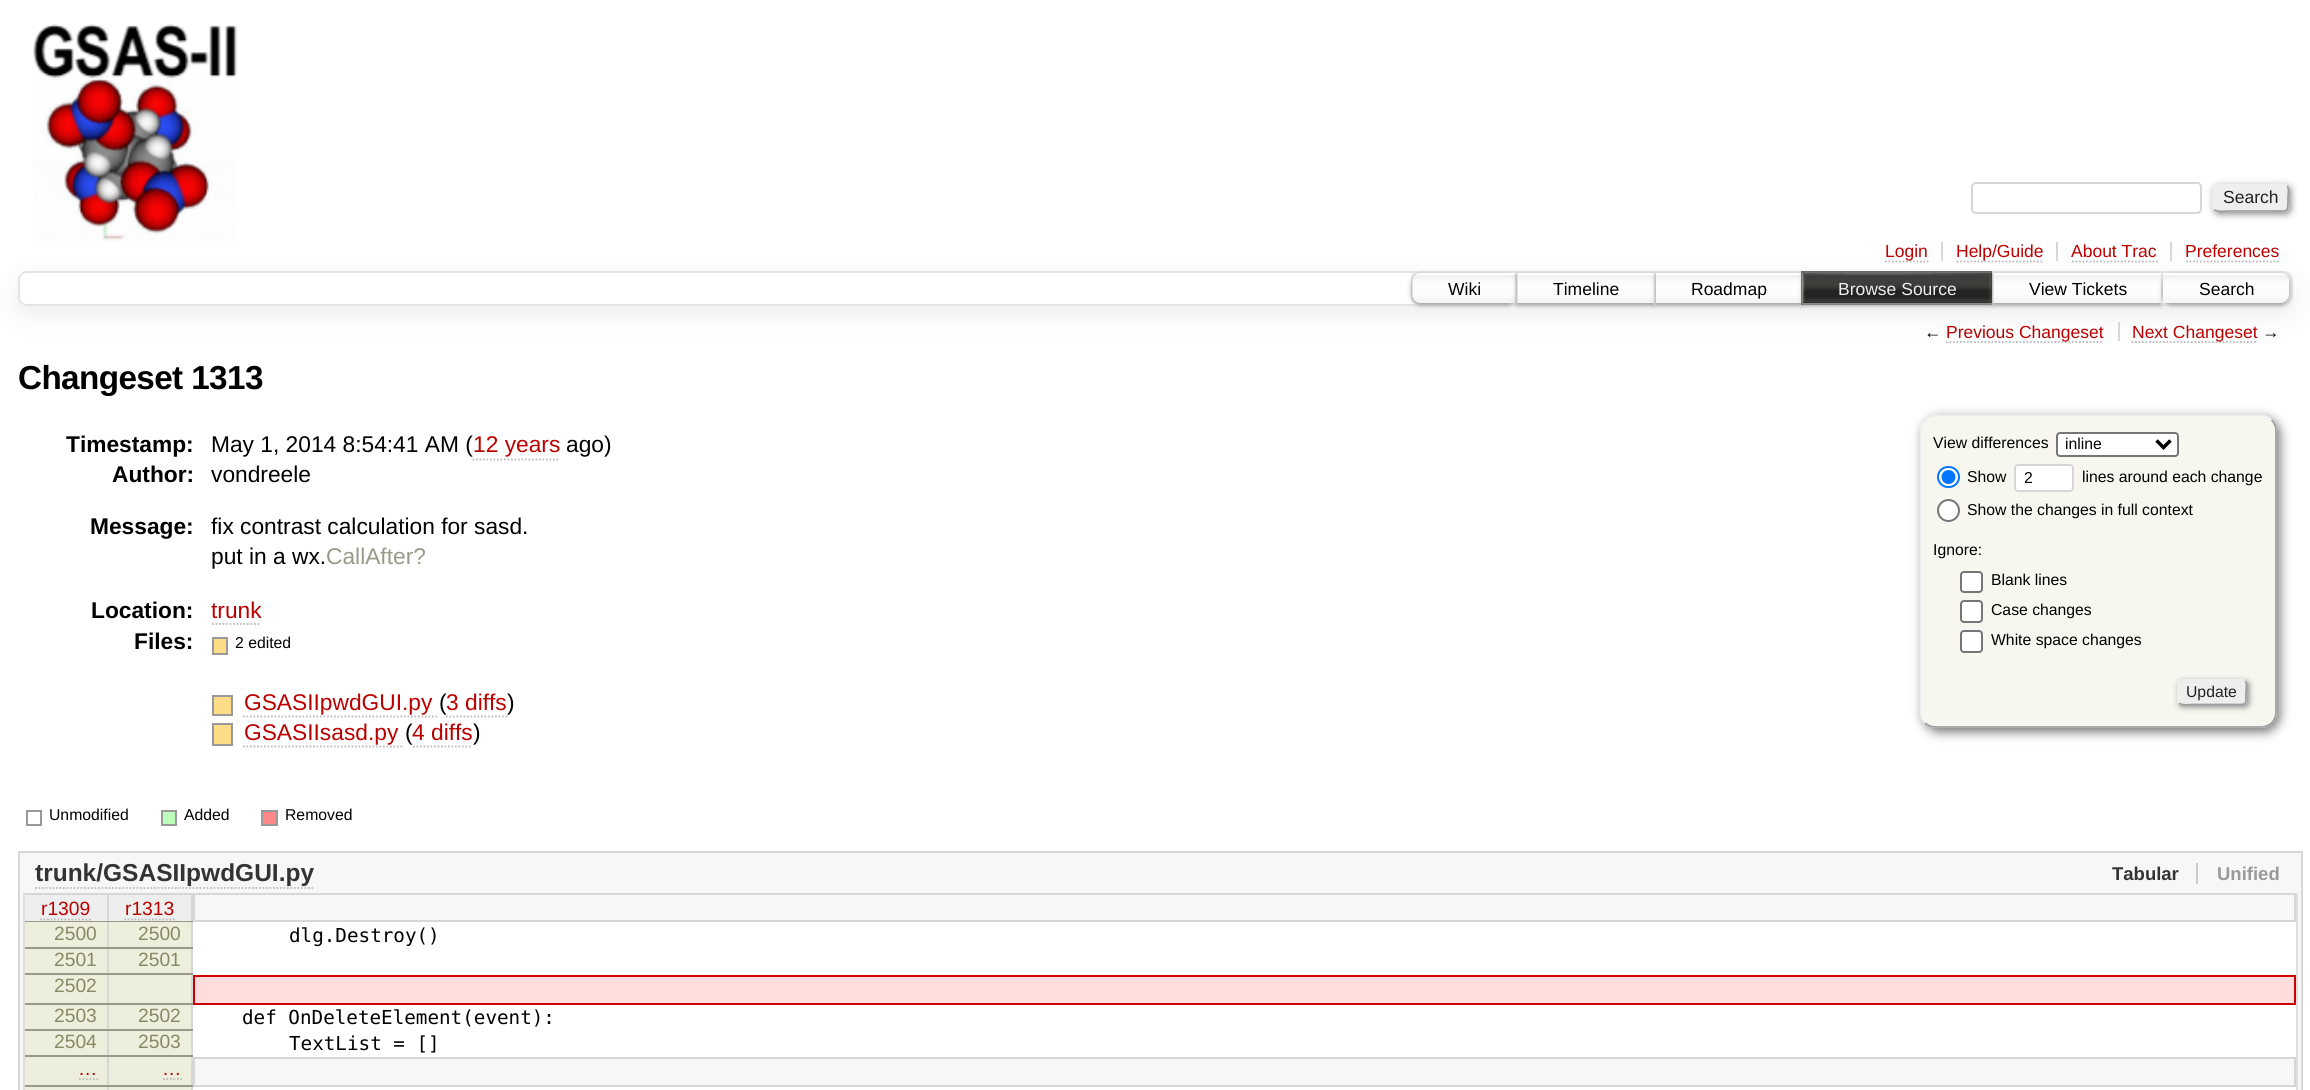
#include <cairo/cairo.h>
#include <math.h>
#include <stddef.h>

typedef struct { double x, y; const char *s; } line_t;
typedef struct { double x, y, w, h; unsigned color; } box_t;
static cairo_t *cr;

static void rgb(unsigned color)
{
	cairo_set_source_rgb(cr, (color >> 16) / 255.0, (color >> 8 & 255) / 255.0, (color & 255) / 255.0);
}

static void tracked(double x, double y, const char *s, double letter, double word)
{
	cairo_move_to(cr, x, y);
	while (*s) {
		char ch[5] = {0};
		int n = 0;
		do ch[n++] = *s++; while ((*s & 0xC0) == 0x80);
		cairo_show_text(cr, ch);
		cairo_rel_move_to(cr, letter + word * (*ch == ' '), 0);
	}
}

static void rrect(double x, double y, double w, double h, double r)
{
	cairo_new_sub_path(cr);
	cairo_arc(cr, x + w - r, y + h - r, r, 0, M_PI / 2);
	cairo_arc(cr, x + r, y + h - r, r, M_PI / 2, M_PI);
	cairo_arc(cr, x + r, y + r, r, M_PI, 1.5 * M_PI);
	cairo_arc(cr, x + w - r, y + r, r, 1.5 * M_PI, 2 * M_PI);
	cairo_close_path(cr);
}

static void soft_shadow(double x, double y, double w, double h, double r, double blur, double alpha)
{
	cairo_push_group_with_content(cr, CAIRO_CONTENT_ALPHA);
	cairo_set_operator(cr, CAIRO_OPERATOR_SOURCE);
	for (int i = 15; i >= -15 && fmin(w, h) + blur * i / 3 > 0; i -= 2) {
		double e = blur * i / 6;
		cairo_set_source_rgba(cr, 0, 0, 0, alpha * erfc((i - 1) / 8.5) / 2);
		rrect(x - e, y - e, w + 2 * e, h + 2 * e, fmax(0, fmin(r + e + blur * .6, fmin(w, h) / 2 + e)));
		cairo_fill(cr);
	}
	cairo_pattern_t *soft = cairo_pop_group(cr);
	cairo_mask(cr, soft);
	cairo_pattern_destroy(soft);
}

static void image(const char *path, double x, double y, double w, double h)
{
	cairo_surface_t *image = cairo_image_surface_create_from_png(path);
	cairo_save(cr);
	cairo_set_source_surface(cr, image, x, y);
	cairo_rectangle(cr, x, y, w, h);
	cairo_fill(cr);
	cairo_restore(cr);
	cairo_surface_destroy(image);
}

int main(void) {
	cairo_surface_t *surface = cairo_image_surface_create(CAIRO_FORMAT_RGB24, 2310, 1090);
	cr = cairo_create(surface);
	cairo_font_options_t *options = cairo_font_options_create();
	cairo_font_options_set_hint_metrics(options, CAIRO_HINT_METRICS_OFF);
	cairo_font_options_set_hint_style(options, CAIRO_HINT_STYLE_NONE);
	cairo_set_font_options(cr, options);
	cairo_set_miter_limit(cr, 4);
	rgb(0xffffff);
	cairo_paint(cr);
	cairo_save(cr);
	cairo_set_fill_rule(cr, CAIRO_FILL_RULE_EVEN_ODD);
	cairo_new_path(cr);
	cairo_move_to(cr, 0, 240);
	cairo_line_to(cr, 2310, 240);
	cairo_line_to(cr, 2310, 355);
	cairo_line_to(cr, 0, 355);
	cairo_close_path(cr);
	cairo_move_to(cr, 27, 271);
	cairo_line_to(cr, 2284, 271);
	cairo_curve_to(cr, 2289, 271, 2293, 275, 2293, 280);
	cairo_line_to(cr, 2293, 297);
	cairo_curve_to(cr, 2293, 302, 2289, 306, 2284, 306);
	cairo_line_to(cr, 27, 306);
	cairo_curve_to(cr, 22, 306, 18, 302, 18, 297);
	cairo_line_to(cr, 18, 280);
	cairo_curve_to(cr, 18, 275, 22, 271, 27, 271);
	cairo_close_path(cr);
	cairo_clip(cr);
	rgb(0xeeeeee);
	soft_shadow(18, 280, 2275, 35, 9, 13, 1);
	cairo_restore(cr);
	image("img/1.png", 33, 24, 204, 217);
	rrect(1972, 183, 229, 30, 4);
	rgb(0xd7d7d7);
	cairo_stroke(cr);
	rgb(0x888888);
	soft_shadow(2214, 186, 77, 28, 5, 3.5, 1);
	rgb(0xeeeeee);
	rrect(2212, 184, 77, 28, 5);
	cairo_fill(cr);
	cairo_new_path(cr);
	cairo_move_to(cr, 2287, 186);
	cairo_curve_to(cr, 2289.5, 188.5, 2288, 194.5, 2288, 198);
	cairo_curve_to(cr, 2288, 213, 2288.5, 211, 2272.5, 211);
	cairo_line_to(cr, 2228.5, 211);
	cairo_curve_to(cr, 2227.5, 211, 2217, 212.5, 2214, 209.5);
	rgb(0x9f9f9f);
	cairo_set_line_width(cr, 1.8);
	cairo_stroke(cr);
	cairo_new_path(cr);
	cairo_move_to(cr, 2214, 209.5);
	cairo_curve_to(cr, 2211.5, 207, 2213, 201, 2213, 198);
	cairo_curve_to(cr, 2213, 182.5, 2212.5, 184.5, 2228.5, 184.5);
	cairo_line_to(cr, 2272.5, 184.5);
	cairo_curve_to(cr, 2273.5, 184.5, 2284, 183, 2287, 186);
	rgb(0xeeeeee);
	cairo_stroke(cr);
	rgb(0xd7d7d7);
	cairo_rectangle(cr, 1941, 242, 2, 19);
	cairo_fill(cr);
	cairo_new_path(cr);
	cairo_move_to(cr, 1885, 261.5);
	cairo_line_to(cr, 1928.5, 261.5);
	rgb(0xbbbbbb);
	cairo_set_dash(cr, (double[]){1.75, 1.75}, 2, 0);
	cairo_stroke(cr);
	rgb(0xd7d7d7);
	cairo_rectangle(cr, 2056, 242, 2, 19);
	cairo_fill(cr);
	cairo_new_path(cr);
	cairo_move_to(cr, 1956.5, 261.5);
	cairo_line_to(cr, 2044, 261.5);
	rgb(0xbbbbbb);
	cairo_stroke(cr);
	rgb(0xd7d7d7);
	cairo_rectangle(cr, 2170, 242, 2, 19);
	cairo_fill(cr);
	cairo_new_path(cr);
	cairo_move_to(cr, 2072, 261.5);
	cairo_line_to(cr, 2158, 261.5);
	rgb(0xbbbbbb);
	cairo_stroke(cr);
	cairo_new_path(cr);
	cairo_move_to(cr, 2186, 261.5);
	cairo_line_to(cr, 2280, 261.5);
	cairo_stroke(cr);
	rrect(19, 272, 2273, 33, 8);
	rgb(0xe4e4e4);
	cairo_set_line_width(cr, 2);
	cairo_set_dash(cr, NULL, 0, 0);
	cairo_stroke(cr);
	rgb(0xffffff);
	cairo_new_path(cr);
	cairo_move_to(cr, 1420, 271);
	cairo_line_to(cr, 1517, 271);
	cairo_line_to(cr, 1517, 305);
	cairo_line_to(cr, 1420, 305);
	cairo_curve_to(cr, 1415, 305, 1411, 301, 1411, 296);
	cairo_line_to(cr, 1411, 280);
	cairo_curve_to(cr, 1411, 275, 1415, 271, 1420, 271);
	cairo_close_path(cr);
	cairo_fill(cr);
	image("img/2.png", 1411, 275, 104, 29);
	cairo_new_path(cr);
	cairo_move_to(cr, 1420, 272);
	cairo_line_to(cr, 1516, 272);
	cairo_line_to(cr, 1516, 304);
	cairo_line_to(cr, 1420, 304);
	cairo_curve_to(cr, 1415.5, 304, 1412, 300.5, 1412, 296);
	cairo_line_to(cr, 1412, 280);
	cairo_curve_to(cr, 1412, 275.5, 1415.5, 272, 1420, 272);
	cairo_close_path(cr);
	rgb(0xe4e4e4);
	cairo_stroke(cr);
	cairo_save(cr);
	cairo_set_fill_rule(cr, CAIRO_FILL_RULE_EVEN_ODD);
	cairo_new_path(cr);
	cairo_move_to(cr, 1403, 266);
	cairo_line_to(cr, 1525, 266);
	cairo_line_to(cr, 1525, 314);
	cairo_line_to(cr, 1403, 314);
	cairo_close_path(cr);
	cairo_move_to(cr, 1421, 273);
	cairo_line_to(cr, 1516, 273);
	cairo_line_to(cr, 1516, 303);
	cairo_line_to(cr, 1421, 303);
	cairo_curve_to(cr, 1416, 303, 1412, 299, 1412, 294);
	cairo_line_to(cr, 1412, 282);
	cairo_curve_to(cr, 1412, 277, 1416, 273, 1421, 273);
	cairo_close_path(cr);
	cairo_clip(cr);
	rgb(0x999999);
	soft_shadow(1412, 275, 104, 30, 9, 2.5, 1);
	cairo_restore(cr);
	rgb(0xffffff);
	cairo_rectangle(cr, 1518, 277, 3, 26);
	cairo_fill(cr);
	image("img/3.png", 1515, 275, 139, 28);
	cairo_rectangle(cr, 1517, 272, 138, 32);
	rgb(0xe4e4e4);
	cairo_stroke(cr);
	cairo_save(cr);
	cairo_set_fill_rule(cr, CAIRO_FILL_RULE_EVEN_ODD);
	cairo_new_path(cr);
	cairo_move_to(cr, 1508, 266);
	cairo_line_to(cr, 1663, 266);
	cairo_line_to(cr, 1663, 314);
	cairo_line_to(cr, 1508, 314);
	cairo_close_path(cr);
	cairo_move_to(cr, 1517, 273);
	cairo_line_to(cr, 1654, 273);
	cairo_line_to(cr, 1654, 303);
	cairo_line_to(cr, 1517, 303);
	cairo_close_path(cr);
	cairo_clip(cr);
	rgb(0x999999);
	soft_shadow(1517, 275, 137, 30, 0, 2.5, 1);
	cairo_restore(cr);
	rgb(0xffffff);
	cairo_rectangle(cr, 1656, 273, 3, 30);
	cairo_fill(cr);
	image("img/4.png", 1656, 275, 145, 28);
	cairo_rectangle(cr, 1655, 272, 147, 32);
	rgb(0xe4e4e4);
	cairo_stroke(cr);
	cairo_save(cr);
	cairo_set_fill_rule(cr, CAIRO_FILL_RULE_EVEN_ODD);
	cairo_new_path(cr);
	cairo_move_to(cr, 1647, 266);
	cairo_line_to(cr, 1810, 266);
	cairo_line_to(cr, 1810, 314);
	cairo_line_to(cr, 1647, 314);
	cairo_close_path(cr);
	cairo_move_to(cr, 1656, 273);
	cairo_line_to(cr, 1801, 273);
	cairo_line_to(cr, 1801, 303);
	cairo_line_to(cr, 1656, 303);
	cairo_close_path(cr);
	cairo_clip(cr);
	rgb(0x999999);
	soft_shadow(1656, 275, 145, 30, 0, 2.5, 1);
	cairo_restore(cr);
	cairo_rectangle(cr, 1802, 272, 190, 32);
	rgb(0x666666);
	cairo_stroke(cr);
	rgb(0x999999);
	soft_shadow(1803, 275, 189, 30, 0, 2.5, 1);
	rgb(0x000000);
	cairo_rectangle(cr, 1803, 273, 189, 30);
	cairo_fill(cr);
	image("img/5.png", 1802, 273, 190, 30);
	rgb(0xffffff);
	cairo_rectangle(cr, 1994, 273, 3, 30);
	cairo_fill(cr);
	image("img/6.png", 1991, 275, 170, 28);
	cairo_rectangle(cr, 1993, 272, 169, 32);
	rgb(0xe4e4e4);
	cairo_stroke(cr);
	cairo_save(cr);
	cairo_set_fill_rule(cr, CAIRO_FILL_RULE_EVEN_ODD);
	cairo_new_path(cr);
	cairo_move_to(cr, 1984, 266);
	cairo_line_to(cr, 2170, 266);
	cairo_line_to(cr, 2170, 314);
	cairo_line_to(cr, 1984, 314);
	cairo_close_path(cr);
	cairo_move_to(cr, 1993, 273);
	cairo_line_to(cr, 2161, 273);
	cairo_line_to(cr, 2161, 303);
	cairo_line_to(cr, 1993, 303);
	cairo_close_path(cr);
	cairo_clip(cr);
	rgb(0x999999);
	soft_shadow(1993, 275, 168, 30, 0, 2.5, 1);
	cairo_restore(cr);
	rgb(0xffffff);
	cairo_new_path(cr);
	cairo_move_to(cr, 2161, 271);
	cairo_line_to(cr, 2282, 271);
	cairo_curve_to(cr, 2287, 271, 2291, 275, 2291, 280);
	cairo_line_to(cr, 2291, 296);
	cairo_curve_to(cr, 2291, 301, 2287, 305, 2282, 305);
	cairo_line_to(cr, 2161, 305);
	cairo_close_path(cr);
	cairo_fill(cr);
	image("img/7.png", 2163, 275, 126, 28);
	cairo_new_path(cr);
	cairo_move_to(cr, 2162, 272);
	cairo_line_to(cr, 2282, 272);
	cairo_curve_to(cr, 2286.5, 272, 2290, 275.5, 2290, 280);
	cairo_line_to(cr, 2290, 296);
	cairo_curve_to(cr, 2290, 300.5, 2286.5, 304, 2282, 304);
	cairo_line_to(cr, 2162, 304);
	cairo_close_path(cr);
	rgb(0xe4e4e4);
	cairo_stroke(cr);
	cairo_save(cr);
	cairo_set_fill_rule(cr, CAIRO_FILL_RULE_EVEN_ODD);
	cairo_new_path(cr);
	cairo_move_to(cr, 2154, 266);
	cairo_line_to(cr, 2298, 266);
	cairo_line_to(cr, 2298, 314);
	cairo_line_to(cr, 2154, 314);
	cairo_close_path(cr);
	cairo_move_to(cr, 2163, 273);
	cairo_line_to(cr, 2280, 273);
	cairo_curve_to(cr, 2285, 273, 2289, 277, 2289, 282);
	cairo_line_to(cr, 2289, 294);
	cairo_curve_to(cr, 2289, 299, 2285, 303, 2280, 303);
	cairo_line_to(cr, 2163, 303);
	cairo_close_path(cr);
	cairo_clip(cr);
	rgb(0x999999);
	soft_shadow(2163, 275, 126, 30, 9, 2.5, 1);
	cairo_restore(cr);
	rgb(0xd7d7d7);
	cairo_rectangle(cr, 2118, 322, 2, 19);
	cairo_fill(cr);
	cairo_new_path(cr);
	cairo_move_to(cr, 1946, 342);
	cairo_line_to(cr, 2103.5, 342);
	rgb(0xbbbbbb);
	cairo_set_line_width(cr, 1.8);
	cairo_set_dash(cr, (double[]){1.75, 1.75}, 2, 0);
	cairo_stroke(cr);
	cairo_new_path(cr);
	cairo_move_to(cr, 2131.5, 342);
	cairo_line_to(cr, 2257.5, 342);
	cairo_stroke(cr);
	cairo_new_path(cr);
	cairo_move_to(cr, 472.5, 459.5);
	cairo_line_to(cr, 560, 459.5);
	cairo_stroke(cr);
	cairo_new_path(cr);
	cairo_move_to(cr, 212, 624);
	cairo_line_to(cr, 261, 624);
	cairo_stroke(cr);
	rgb(0xffdd88);
	cairo_rectangle(cr, 213, 638, 14, 16);
	cairo_fill_preserve(cr);
	rgb(0x999999);
	cairo_set_line_width(cr, 2);
	cairo_set_dash(cr, NULL, 0, 0);
	cairo_stroke(cr);
	rgb(0xffdd88);
	cairo_rectangle(cr, 213, 696, 19, 19);
	cairo_fill_preserve(cr);
	rgb(0x999999);
	cairo_stroke(cr);
	cairo_new_path(cr);
	cairo_move_to(cr, 243, 716.5);
	cairo_line_to(cr, 439, 716.5);
	rgb(0xbbbbbb);
	cairo_set_line_width(cr, 1.8);
	cairo_set_dash(cr, (double[]){1.75, 1.75}, 2, 0);
	cairo_stroke(cr);
	cairo_new_path(cr);
	cairo_move_to(cr, 446, 716.5);
	cairo_line_to(cr, 507.5, 716.5);
	cairo_stroke(cr);
	rgb(0xffdd88);
	cairo_rectangle(cr, 213, 724, 19, 21);
	cairo_fill_preserve(cr);
	rgb(0x999999);
	cairo_set_line_width(cr, 2);
	cairo_set_dash(cr, NULL, 0, 0);
	cairo_stroke(cr);
	cairo_new_path(cr);
	cairo_move_to(cr, 243, 746.5);
	cairo_line_to(cr, 404, 746.5);
	rgb(0xbbbbbb);
	cairo_set_line_width(cr, 1.8);
	cairo_set_dash(cr, (double[]){1.75, 1.75}, 2, 0);
	cairo_stroke(cr);
	cairo_new_path(cr);
	cairo_move_to(cr, 413, 746.5);
	cairo_line_to(cr, 472.5, 746.5);
	cairo_stroke(cr);
	rgb(0x777777);
	soft_shadow(1923, 418, 357, 314, 16, 5.5, 1);
	rgb(0xf7f7f0);
	rrect(1920, 415, 357, 313, 16);
	cairo_fill(cr);
	cairo_new_path(cr);
	cairo_move_to(cr, 2271.5, 420);
	cairo_curve_to(cr, 2274.5, 423, 2276, 426.5, 2276, 430.5);
	cairo_line_to(cr, 2276, 712);
	cairo_curve_to(cr, 2276, 716, 2274.5, 720, 2271.5, 723);
	cairo_curve_to(cr, 2268.5, 725.5, 2265, 727, 2261, 727);
	cairo_line_to(cr, 1935.5, 727);
	cairo_curve_to(cr, 1931.5, 727, 1928, 725.5, 1925, 723);
	rgb(0x9f9f9f);
	cairo_set_dash(cr, NULL, 0, 0);
	cairo_stroke(cr);
	cairo_new_path(cr);
	cairo_move_to(cr, 1925, 723);
	cairo_curve_to(cr, 1922, 720, 1920.5, 716, 1920.5, 712);
	cairo_line_to(cr, 1920.5, 430.5);
	cairo_curve_to(cr, 1920.5, 426.5, 1922, 423, 1925, 420);
	cairo_curve_to(cr, 1928, 417, 1931.5, 415.5, 1935.5, 415.5);
	cairo_line_to(cr, 2261, 415.5);
	cairo_curve_to(cr, 2265, 415.5, 2268.5, 417, 2271.5, 420);
	rgb(0xeeeeee);
	cairo_stroke(cr);
	rgb(0xffffff);
	rrect(2057, 433, 121, 23, 3);
	cairo_fill_preserve(cr);
	rgb(0x767676);
	cairo_set_line_width(cr, 2);
	cairo_stroke(cr);
	cairo_new_path(cr);
	cairo_move_to(cr, 2156.5, 440.5);
	cairo_line_to(cr, 2163.5, 447.5);
	cairo_line_to(cr, 2170.5, 440.5);
	rgb(0x000000);
	cairo_set_line_width(cr, 3.5);
	cairo_stroke(cr);
	rgb(0xffffff);
	rrect(1938, 467, 21, 20, 10);
	cairo_fill_preserve(cr);
	rgb(0x0075ff);
	cairo_set_line_width(cr, 2);
	cairo_stroke(cr);
	cairo_arc(cr, 1948.5, 477, 7, 0, 2 * M_PI);
	cairo_fill(cr);
	rgb(0xffffff);
	rrect(2015, 465, 58, 26, 3);
	cairo_fill_preserve(cr);
	rgb(0xd7d7d7);
	cairo_stroke(cr);
	rgb(0xffffff);
	cairo_arc(cr, 1948.5, 510.5, 10.5, 0, 2 * M_PI);
	cairo_fill_preserve(cr);
	rgb(0x767676);
	cairo_stroke(cr);
	rgb(0xffffff);
	rrect(1961, 572, 21, 20, 3);
	cairo_fill_preserve(cr);
	rgb(0x767676);
	cairo_stroke(cr);
	rgb(0xffffff);
	rrect(1961, 601, 21, 21, 3);
	cairo_fill_preserve(cr);
	rgb(0x767676);
	cairo_stroke(cr);
	rgb(0xffffff);
	rrect(1961, 631, 21, 21, 3);
	cairo_fill_preserve(cr);
	rgb(0x767676);
	cairo_stroke(cr);
	rgb(0x888888);
	soft_shadow(2179, 681, 70, 26, 4, 3, 1);
	rgb(0xeeeeee);
	rrect(2177, 679, 70, 26, 4);
	cairo_fill(cr);
	cairo_new_path(cr);
	cairo_move_to(cr, 2245, 681);
	cairo_curve_to(cr, 2247.5, 683.5, 2246, 689.5, 2246, 692);
	cairo_curve_to(cr, 2246, 706, 2247, 704.5, 2232, 704.5);
	cairo_line_to(cr, 2192, 704.5);
	cairo_curve_to(cr, 2191.5, 704.5, 2181.5, 706, 2179, 703);
	rgb(0x9f9f9f);
	cairo_set_line_width(cr, 1.8);
	cairo_stroke(cr);
	cairo_new_path(cr);
	cairo_move_to(cr, 2179, 703);
	cairo_curve_to(cr, 2176.5, 701, 2178, 695, 2178, 692);
	cairo_curve_to(cr, 2178, 678, 2177, 680, 2192, 680);
	cairo_line_to(cr, 2232, 680);
	cairo_curve_to(cr, 2232.5, 680, 2242.5, 678.5, 2245, 681);
	rgb(0xeeeeee);
	cairo_stroke(cr);
	cairo_rectangle(cr, 27, 811, 14, 14);
	rgb(0x999999);
	cairo_set_line_width(cr, 2);
	cairo_stroke(cr);
	rgb(0xbbffbb);
	cairo_rectangle(cr, 162, 811, 14, 14);
	cairo_fill_preserve(cr);
	rgb(0x999999);
	cairo_stroke(cr);
	rgb(0xff8888);
	cairo_rectangle(cr, 262, 811, 15, 14);
	cairo_fill_preserve(cr);
	rgb(0x999999);
	cairo_stroke(cr);
	rgb(0xf7f7f7);
	cairo_rectangle(cr, 19, 852, 2283, 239);
	cairo_fill_preserve(cr);
	rgb(0xd7d7d7);
	cairo_stroke(cr);
	cairo_new_path(cr);
	cairo_move_to(cr, 35, 888);
	cairo_line_to(cr, 313, 888);
	rgb(0xbbbbbb);
	cairo_set_line_width(cr, 1.8);
	cairo_set_dash(cr, (double[]){1.75, 1.75}, 2, 0);
	cairo_stroke(cr);
	{
		static const box_t items[] = {
			{2196, 863, 2, 21, 0xcccccc},
			{2296, 893, 2, 197, 0xdddddd},
			{23, 893, 2, 197, 0xdddddd},
			{25, 895, 82, 26, 0xeeeeee},
			{25, 893, 168, 2, 0xd7d7d7},
			{107, 893, 2, 194, 0xd7d7d7},
			{25, 921, 84, 1, 0x999988},
		};
		for (size_t i = 0; i < sizeof items / sizeof *items; i++) {
			rgb(items[i].color);
			cairo_rectangle(cr, items[i].x, items[i].y, items[i].w, items[i].h);
			cairo_fill(cr);
		}
	}
	cairo_new_path(cr);
	cairo_move_to(cr, 40, 919.5);
	cairo_line_to(cr, 91, 919.5);
	rgb(0xbbbbbb);
	cairo_stroke(cr);
	{
		static const box_t items[] = {
			{109, 895, 82, 26, 0xeeeeee},
			{191, 893, 2, 194, 0xd7d7d7},
			{109, 921, 84, 1, 0x999988},
		};
		for (size_t i = 0; i < sizeof items / sizeof *items; i++) {
			rgb(items[i].color);
			cairo_rectangle(cr, items[i].x, items[i].y, items[i].w, items[i].h);
			cairo_fill(cr);
		}
	}
	cairo_new_path(cr);
	cairo_move_to(cr, 124, 919.5);
	cairo_line_to(cr, 175, 919.5);
	rgb(0xbbbbbb);
	cairo_stroke(cr);
	cairo_rectangle(cr, 194, 894, 2101, 27);
	rgb(0xd7d7d7);
	cairo_set_line_width(cr, 2);
	cairo_set_dash(cr, NULL, 0, 0);
	cairo_stroke(cr);
	{
		static const box_t items[] = {
			{25, 922, 82, 25, 0xeeeedd},
			{25, 947, 168, 2, 0x999988},
			{109, 922, 82, 25, 0xeeeedd},
			{193, 922, 2103, 53, 0xffffff},
			{25, 949, 82, 24, 0xeeeedd},
			{25, 973, 168, 2, 0x999988},
			{109, 949, 82, 24, 0xeeeedd},
			{25, 975, 82, 28, 0xeeeedd},
			{25, 1003, 168, 2, 0x999988},
			{109, 975, 82, 28, 0xeeeedd},
		};
		for (size_t i = 0; i < sizeof items / sizeof *items; i++) {
			rgb(items[i].color);
			cairo_rectangle(cr, items[i].x, items[i].y, items[i].w, items[i].h);
			cairo_fill(cr);
		}
	}
	rgb(0xffdddd);
	cairo_rectangle(cr, 194, 976, 2101, 28);
	cairo_fill_preserve(cr);
	rgb(0xcc0000);
	cairo_stroke(cr);
	{
		static const box_t items[] = {
			{25, 1005, 82, 24, 0xeeeedd},
			{25, 1029, 168, 2, 0x999988},
			{109, 1005, 82, 24, 0xeeeedd},
			{193, 1005, 2103, 52, 0xffffff},
			{25, 1031, 82, 24, 0xeeeedd},
			{25, 1055, 168, 2, 0x999988},
			{109, 1031, 82, 24, 0xeeeedd},
			{25, 1057, 82, 28, 0xeeeedd},
			{25, 1085, 168, 2, 0x999988},
		};
		for (size_t i = 0; i < sizeof items / sizeof *items; i++) {
			rgb(items[i].color);
			cairo_rectangle(cr, items[i].x, items[i].y, items[i].w, items[i].h);
			cairo_fill(cr);
		}
	}
	cairo_new_path(cr);
	cairo_move_to(cr, 79, 1079);
	cairo_line_to(cr, 98, 1079);
	rgb(0xbbbbbb);
	cairo_set_line_width(cr, 1.8);
	cairo_set_dash(cr, (double[]){1.75, 1.75}, 2, 0);
	cairo_stroke(cr);
	rgb(0xeeeedd);
	cairo_rectangle(cr, 109, 1057, 82, 28);
	cairo_fill(cr);
	cairo_new_path(cr);
	cairo_move_to(cr, 163, 1079);
	cairo_line_to(cr, 182, 1079);
	rgb(0xbbbbbb);
	cairo_stroke(cr);
	cairo_rectangle(cr, 194, 1058, 2101, 28);
	rgb(0xd7d7d7);
	cairo_set_line_width(cr, 2);
	cairo_set_dash(cr, NULL, 0, 0);
	cairo_stroke(cr);
	{
		static const box_t items[] = {
			{25, 1087, 168, 3, 0xeeeedd},
			{107, 1087, 2, 3, 0xd7d7d7},
			{191, 1087, 2, 3, 0xd7d7d7},
			{193, 1087, 2103, 3, 0xffffff},
		};
		for (size_t i = 0; i < sizeof items / sizeof *items; i++) {
			rgb(items[i].color);
			cairo_rectangle(cr, items[i].x, items[i].y, items[i].w, items[i].h);
			cairo_fill(cr);
		}
	}
	cairo_select_font_face(cr, "Liberation Sans", CAIRO_FONT_SLANT_NORMAL, CAIRO_FONT_WEIGHT_NORMAL);
	cairo_set_font_size(cr, 17.5);
	rgb(0x222222);
	cairo_move_to(cr, 2223, 203);
	cairo_show_text(cr, "Search");
	rgb(0xbb0000);
	{
		static const line_t items[] = {
			{1885, 257, "Login"},
			{1956, 257, "Help/Guide"},
			{2071, 257, "About Trac"},
			{2185, 257, "Preferences"},
		};
		for (size_t i = 0; i < sizeof items / sizeof *items; i++) {
			cairo_move_to(cr, items[i].x, items[i].y);
			cairo_show_text(cr, items[i].s);
		}
	}
	rgb(0x000000);
	{
		static const line_t items[] = {
			{1448, 295, "Wiki"},
			{1553, 295, "Timeline"},
			{1691, 295, "Roadmap"},
		};
		for (size_t i = 0; i < sizeof items / sizeof *items; i++) {
			cairo_move_to(cr, items[i].x, items[i].y);
			cairo_show_text(cr, items[i].s);
		}
	}
	rgb(0xeeeeee);
	cairo_move_to(cr, 1838, 295);
	cairo_show_text(cr, "Browse Source");
	rgb(0x000000);
	{
		static const line_t items[] = {
			{2029, 295, "View Tickets"},
			{2199, 295, "Search"},
			{1924, 338, "←"},
		};
		for (size_t i = 0; i < sizeof items / sizeof *items; i++) {
			cairo_move_to(cr, items[i].x, items[i].y);
			cairo_show_text(cr, items[i].s);
		}
	}
	rgb(0xbb0000);
	cairo_move_to(cr, 1946, 338);
	cairo_show_text(cr, "Previous Changeset");
	cairo_move_to(cr, 2132, 338);
	cairo_show_text(cr, "Next Changeset");
	rgb(0x000000);
	cairo_move_to(cr, 2262, 338);
	cairo_show_text(cr, "→");
	cairo_select_font_face(cr, "Liberation Sans", CAIRO_FONT_SLANT_NORMAL, CAIRO_FONT_WEIGHT_BOLD);
	cairo_set_font_size(cr, 33.25);
	tracked(18, 389, "Changeset 1313", -0.6, 0);
	cairo_set_font_size(cr, 22.75);
	cairo_move_to(cr, 66, 452);
	cairo_show_text(cr, "Timestamp:");
	cairo_select_font_face(cr, "Liberation Sans", CAIRO_FONT_SLANT_NORMAL, CAIRO_FONT_WEIGHT_NORMAL);
	cairo_move_to(cr, 211, 452);
	cairo_show_text(cr, "May 1, 2014 8:54:41 AM (");
	rgb(0xbb0000);
	cairo_move_to(cr, 473, 452);
	cairo_show_text(cr, "12 years");
	rgb(0x000000);
	cairo_move_to(cr, 566, 452);
	cairo_show_text(cr, "ago)");
	cairo_select_font_face(cr, "Liberation Sans", CAIRO_FONT_SLANT_NORMAL, CAIRO_FONT_WEIGHT_BOLD);
	cairo_move_to(cr, 112, 482);
	cairo_show_text(cr, "Author:");
	cairo_select_font_face(cr, "Liberation Sans", CAIRO_FONT_SLANT_NORMAL, CAIRO_FONT_WEIGHT_NORMAL);
	cairo_move_to(cr, 211, 482);
	cairo_show_text(cr, "vondreele");
	cairo_select_font_face(cr, "Liberation Sans", CAIRO_FONT_SLANT_NORMAL, CAIRO_FONT_WEIGHT_BOLD);
	cairo_move_to(cr, 90, 534);
	cairo_show_text(cr, "Message:");
	cairo_select_font_face(cr, "Liberation Sans", CAIRO_FONT_SLANT_NORMAL, CAIRO_FONT_WEIGHT_NORMAL);
	cairo_move_to(cr, 211, 534);
	cairo_show_text(cr, "fix contrast calculation for sasd.");
	cairo_move_to(cr, 211, 564);
	cairo_show_text(cr, "put in a wx.");
	rgb(0x999988);
	cairo_move_to(cr, 326, 564);
	cairo_show_text(cr, "CallAfter?");
	cairo_select_font_face(cr, "Liberation Sans", CAIRO_FONT_SLANT_NORMAL, CAIRO_FONT_WEIGHT_BOLD);
	rgb(0x000000);
	cairo_move_to(cr, 91, 618);
	cairo_show_text(cr, "Location:");
	cairo_select_font_face(cr, "Liberation Sans", CAIRO_FONT_SLANT_NORMAL, CAIRO_FONT_WEIGHT_NORMAL);
	rgb(0xbb0000);
	cairo_move_to(cr, 211, 618);
	cairo_show_text(cr, "trunk");
	cairo_select_font_face(cr, "Liberation Sans", CAIRO_FONT_SLANT_NORMAL, CAIRO_FONT_WEIGHT_BOLD);
	rgb(0x000000);
	cairo_move_to(cr, 134, 649);
	cairo_show_text(cr, "Files:");
	cairo_select_font_face(cr, "Liberation Sans", CAIRO_FONT_SLANT_NORMAL, CAIRO_FONT_WEIGHT_NORMAL);
	cairo_set_font_size(cr, 15.75);
	cairo_move_to(cr, 235, 648);
	cairo_show_text(cr, "2 edited");
	cairo_set_font_size(cr, 22.75);
	rgb(0xbb0000);
	cairo_move_to(cr, 244, 710);
	cairo_show_text(cr, "GSASIIpwdGUI.py");
	rgb(0x000000);
	cairo_move_to(cr, 439, 710);
	cairo_show_text(cr, "(");
	rgb(0xbb0000);
	cairo_move_to(cr, 446, 710);
	cairo_show_text(cr, "3 diffs");
	rgb(0x000000);
	cairo_move_to(cr, 507, 710);
	cairo_show_text(cr, ")");
	rgb(0xbb0000);
	cairo_move_to(cr, 244, 740);
	cairo_show_text(cr, "GSASIIsasd.py");
	rgb(0x000000);
	cairo_move_to(cr, 405, 740);
	cairo_show_text(cr, "(");
	rgb(0xbb0000);
	cairo_move_to(cr, 412, 740);
	cairo_show_text(cr, "4 diffs");
	rgb(0x000000);
	cairo_move_to(cr, 473, 740);
	cairo_show_text(cr, ")");
	cairo_set_font_size(cr, 15.75);
	{
		static const line_t items[] = {
			{1933, 448, "View differences"},
			{2065, 449, "inline"},
			{1967, 482, "Show"},
			{2024, 483, "2"},
			{2082, 482, "lines around each change"},
			{1967, 515, "Show the changes in full context"},
			{1933, 555, "Ignore:"},
			{1991, 585, "Blank lines"},
			{1991, 615, "Case changes"},
			{1991, 645, "White space changes"},
		};
		for (size_t i = 0; i < sizeof items / sizeof *items; i++) {
			cairo_move_to(cr, items[i].x, items[i].y);
			cairo_show_text(cr, items[i].s);
		}
	}
	rgb(0x222222);
	cairo_move_to(cr, 2186, 697);
	cairo_show_text(cr, "Update");
	rgb(0x000000);
	{
		static const line_t items[] = {
			{49, 820, "Unmodified"},
			{184, 820, "Added"},
			{285, 820, "Removed"},
		};
		for (size_t i = 0; i < sizeof items / sizeof *items; i++) {
			cairo_move_to(cr, items[i].x, items[i].y);
			cairo_show_text(cr, items[i].s);
		}
	}
	cairo_select_font_face(cr, "Liberation Sans", CAIRO_FONT_SLANT_NORMAL, CAIRO_FONT_WEIGHT_BOLD);
	cairo_set_font_size(cr, 24.5);
	rgb(0x333333);
	cairo_move_to(cr, 35, 881);
	cairo_show_text(cr, "trunk/GSASIIpwdGUI.py");
	cairo_set_font_size(cr, 18.5);
	cairo_move_to(cr, 2112, 880);
	cairo_show_text(cr, "Tabular");
	rgb(0x999999);
	cairo_move_to(cr, 2217, 880);
	cairo_show_text(cr, "Unified");
	cairo_select_font_face(cr, "Liberation Sans", CAIRO_FONT_SLANT_NORMAL, CAIRO_FONT_WEIGHT_NORMAL);
	cairo_set_font_size(cr, 19.25);
	rgb(0xbb0000);
	cairo_move_to(cr, 41, 915);
	cairo_show_text(cr, "r1309");
	cairo_move_to(cr, 125, 915);
	cairo_show_text(cr, "r1313");
	rgb(0x888866);
	cairo_move_to(cr, 54, 940);
	cairo_show_text(cr, "2500");
	cairo_move_to(cr, 138, 940);
	cairo_show_text(cr, "2500");
	cairo_select_font_face(cr, "DejaVu Sans Mono", CAIRO_FONT_SLANT_NORMAL, CAIRO_FONT_WEIGHT_NORMAL);
	rgb(0x000000);
	cairo_move_to(cr, 289, 942);
	cairo_show_text(cr, "dlg.Destroy()");
	cairo_select_font_face(cr, "Liberation Sans", CAIRO_FONT_SLANT_NORMAL, CAIRO_FONT_WEIGHT_NORMAL);
	rgb(0x888866);
	{
		static const line_t items[] = {
			{54, 966, "2501"},
			{138, 966, "2501"},
			{54, 992, "2502"},
			{54, 1022, "2503"},
			{138, 1022, "2502"},
		};
		for (size_t i = 0; i < sizeof items / sizeof *items; i++) {
			cairo_move_to(cr, items[i].x, items[i].y);
			cairo_show_text(cr, items[i].s);
		}
	}
	cairo_select_font_face(cr, "DejaVu Sans Mono", CAIRO_FONT_SLANT_NORMAL, CAIRO_FONT_WEIGHT_NORMAL);
	rgb(0x000000);
	cairo_move_to(cr, 242, 1024);
	cairo_show_text(cr, "def OnDeleteElement(event):");
	cairo_select_font_face(cr, "Liberation Sans", CAIRO_FONT_SLANT_NORMAL, CAIRO_FONT_WEIGHT_NORMAL);
	rgb(0x888866);
	cairo_move_to(cr, 54, 1048);
	cairo_show_text(cr, "2504");
	cairo_move_to(cr, 138, 1048);
	cairo_show_text(cr, "2503");
	cairo_select_font_face(cr, "DejaVu Sans Mono", CAIRO_FONT_SLANT_NORMAL, CAIRO_FONT_WEIGHT_NORMAL);
	rgb(0x000000);
	cairo_move_to(cr, 289, 1050);
	cairo_show_text(cr, "TextList = []");
	cairo_select_font_face(cr, "Liberation Sans", CAIRO_FONT_SLANT_NORMAL, CAIRO_FONT_WEIGHT_NORMAL);
	rgb(0xbb0000);
	cairo_move_to(cr, 78, 1075);
	cairo_show_text(cr, "…");
	cairo_move_to(cr, 162, 1075);
	cairo_show_text(cr, "…");
	cairo_surface_write_to_png(surface, "page.png");
	cairo_font_options_destroy(options);
	cairo_destroy(cr);
	cairo_surface_destroy(surface);
	return 0;
}
